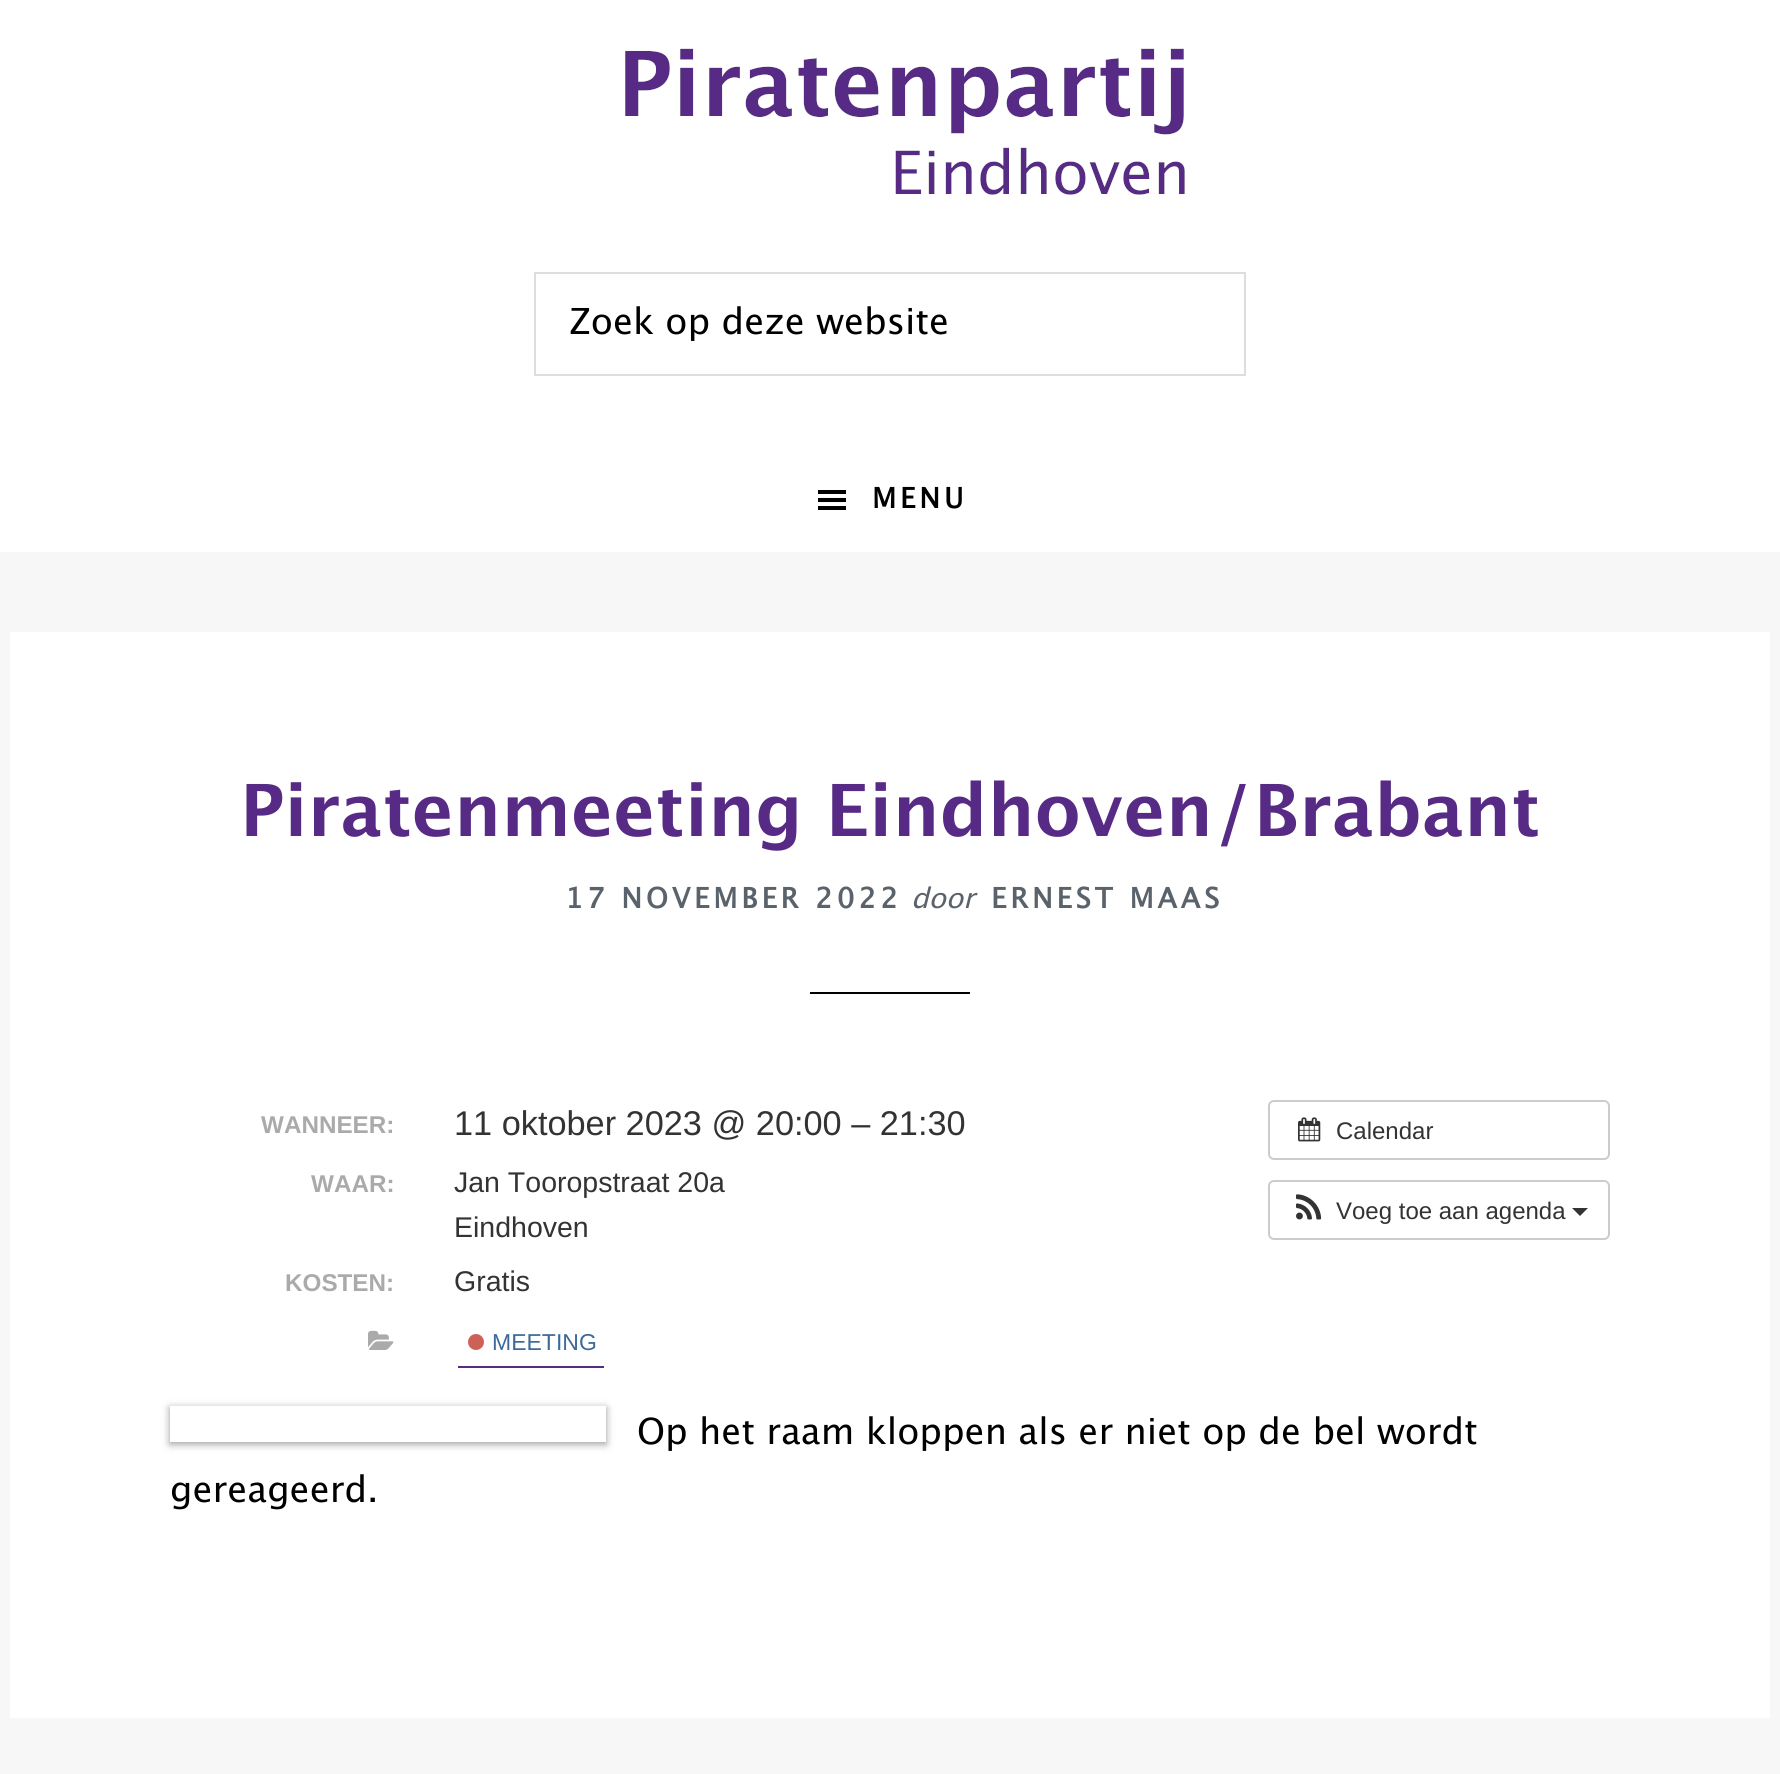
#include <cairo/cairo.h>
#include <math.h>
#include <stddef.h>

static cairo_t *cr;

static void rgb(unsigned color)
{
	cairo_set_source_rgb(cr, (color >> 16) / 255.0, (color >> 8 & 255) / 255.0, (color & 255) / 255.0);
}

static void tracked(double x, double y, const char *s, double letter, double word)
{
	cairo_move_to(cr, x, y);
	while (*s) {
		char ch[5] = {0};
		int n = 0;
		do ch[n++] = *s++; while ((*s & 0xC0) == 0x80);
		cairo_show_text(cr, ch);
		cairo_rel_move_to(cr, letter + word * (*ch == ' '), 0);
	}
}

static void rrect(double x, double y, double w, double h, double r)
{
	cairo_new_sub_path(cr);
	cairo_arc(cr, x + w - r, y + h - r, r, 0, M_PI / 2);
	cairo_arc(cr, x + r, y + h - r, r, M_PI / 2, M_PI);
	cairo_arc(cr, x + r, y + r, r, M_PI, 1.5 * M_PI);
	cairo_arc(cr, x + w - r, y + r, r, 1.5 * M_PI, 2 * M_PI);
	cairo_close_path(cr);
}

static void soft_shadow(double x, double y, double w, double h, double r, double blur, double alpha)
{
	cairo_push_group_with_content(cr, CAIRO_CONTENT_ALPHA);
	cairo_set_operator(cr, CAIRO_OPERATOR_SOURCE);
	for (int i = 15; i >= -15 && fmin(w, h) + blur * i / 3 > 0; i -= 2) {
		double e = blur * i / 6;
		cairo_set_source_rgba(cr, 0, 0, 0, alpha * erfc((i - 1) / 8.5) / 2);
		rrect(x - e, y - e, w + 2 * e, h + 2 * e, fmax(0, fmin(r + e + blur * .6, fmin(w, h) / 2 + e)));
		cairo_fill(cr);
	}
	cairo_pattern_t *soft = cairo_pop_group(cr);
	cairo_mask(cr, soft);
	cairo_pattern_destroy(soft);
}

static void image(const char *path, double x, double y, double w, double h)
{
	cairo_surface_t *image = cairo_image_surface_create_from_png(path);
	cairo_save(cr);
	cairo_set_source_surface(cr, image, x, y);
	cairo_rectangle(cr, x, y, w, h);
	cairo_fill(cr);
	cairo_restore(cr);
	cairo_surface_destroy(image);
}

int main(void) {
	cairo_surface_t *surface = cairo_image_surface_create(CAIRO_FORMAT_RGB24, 1780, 1774);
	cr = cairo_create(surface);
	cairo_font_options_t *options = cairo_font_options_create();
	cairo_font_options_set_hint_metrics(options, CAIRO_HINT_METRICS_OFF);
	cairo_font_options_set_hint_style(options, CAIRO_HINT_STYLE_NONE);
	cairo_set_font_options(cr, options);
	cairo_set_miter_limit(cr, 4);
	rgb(0xf7f7f7);
	cairo_paint(cr);
	rgb(0xffffff);
	cairo_rectangle(cr, 0, 0, 1780, 552);
	cairo_fill(cr);
	image("img/1.png", 625, 48, 560, 147);
	cairo_rectangle(cr, 535, 273, 710, 102);
	rgb(0xdddddd);
	cairo_stroke(cr);
	image("img/2.png", 818, 490, 28, 20);
	rgb(0xffffff);
	cairo_rectangle(cr, 10, 632, 1760, 1086);
	cairo_fill(cr);
	rgb(0x000000);
	cairo_rectangle(cr, 810, 992, 160, 2);
	cairo_fill(cr);
	image("img/3.png", 368, 1330, 26, 20);
	rgb(0x572b85);
	cairo_rectangle(cr, 458, 1366, 146, 2);
	cairo_fill(cr);
	rgb(0xcd6155);
	cairo_arc(cr, 476, 1342, 8, 0, 2 * M_PI);
	cairo_fill(cr);
	rrect(1269, 1101, 340, 58, 5);
	rgb(0xcccccc);
	cairo_stroke(cr);
	image("img/4.png", 1298, 1117, 23, 25);
	rrect(1269, 1181, 340, 58, 5);
	cairo_stroke(cr);
	image("img/5.png", 1296, 1194, 26, 26);
	rgb(0x333333);
	cairo_new_path(cr);
	cairo_move_to(cr, 1572, 1208);
	cairo_line_to(cr, 1588, 1208);
	cairo_line_to(cr, 1580, 1216);
	cairo_close_path(cr);
	cairo_fill(cr);
	cairo_save(cr);
	cairo_set_fill_rule(cr, CAIRO_FILL_RULE_EVEN_ODD);
	cairo_new_path(cr);
	cairo_move_to(cr, 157, 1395);
	cairo_line_to(cr, 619, 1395);
	cairo_line_to(cr, 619, 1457);
	cairo_line_to(cr, 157, 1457);
	cairo_close_path(cr);
	cairo_move_to(cr, 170, 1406);
	cairo_line_to(cr, 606, 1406);
	cairo_line_to(cr, 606, 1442);
	cairo_line_to(cr, 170, 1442);
	cairo_close_path(cr);
	cairo_clip(cr);
	rgb(0x000000);
	soft_shadow(170, 1408, 436, 36, 0, 4, 0.4);
	cairo_restore(cr);
	cairo_select_font_face(cr, "Lucida Grande", CAIRO_FONT_SLANT_NORMAL, CAIRO_FONT_WEIGHT_NORMAL);
	cairo_set_font_size(cr, 36);
	rgb(0x000000);
	cairo_move_to(cr, 569, 334);
	cairo_show_text(cr, "Zoek op deze website");
	cairo_select_font_face(cr, "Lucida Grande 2", CAIRO_FONT_SLANT_NORMAL, CAIRO_FONT_WEIGHT_BOLD);
	cairo_set_font_size(cr, 28);
	tracked(872, 508, "MENU", 4, 0);
	cairo_select_font_face(cr, "Lucida Grande", CAIRO_FONT_SLANT_NORMAL, CAIRO_FONT_WEIGHT_BOLD);
	cairo_set_font_size(cr, 72);
	rgb(0x572b85);
	cairo_move_to(cr, 240, 836);
	cairo_show_text(cr, "Piratenmeeting Eindhoven/Brabant");
	cairo_select_font_face(cr, "Lucida Grande 2", CAIRO_FONT_SLANT_NORMAL, CAIRO_FONT_WEIGHT_BOLD);
	cairo_set_font_size(cr, 28);
	rgb(0x5a636c);
	tracked(565, 908, "17 NOVEMBER 2022", 4, 0);
	cairo_select_font_face(cr, "Lucida Grande", CAIRO_FONT_SLANT_ITALIC, CAIRO_FONT_WEIGHT_NORMAL);
	cairo_move_to(cr, 911, 908);
	cairo_show_text(cr, "door");
	cairo_select_font_face(cr, "Lucida Grande 2", CAIRO_FONT_SLANT_NORMAL, CAIRO_FONT_WEIGHT_BOLD);
	tracked(991, 908, "ERNEST MAAS", 4, 0);
	cairo_select_font_face(cr, "Liberation Sans", CAIRO_FONT_SLANT_NORMAL, CAIRO_FONT_WEIGHT_BOLD);
	cairo_set_font_size(cr, 24.25);
	rgb(0xaaaaaa);
	cairo_move_to(cr, 261, 1133);
	cairo_show_text(cr, "WANNEER:");
	cairo_select_font_face(cr, "Liberation Sans", CAIRO_FONT_SLANT_NORMAL, CAIRO_FONT_WEIGHT_NORMAL);
	cairo_set_font_size(cr, 34.3);
	rgb(0x333333);
	cairo_move_to(cr, 454, 1135);
	cairo_show_text(cr, "11 oktober 2023 @ 20:00 – 21:30");
	cairo_select_font_face(cr, "Liberation Sans", CAIRO_FONT_SLANT_NORMAL, CAIRO_FONT_WEIGHT_BOLD);
	cairo_set_font_size(cr, 24.25);
	rgb(0xaaaaaa);
	cairo_move_to(cr, 311, 1192);
	cairo_show_text(cr, "WAAR:");
	cairo_select_font_face(cr, "Liberation Sans", CAIRO_FONT_SLANT_NORMAL, CAIRO_FONT_WEIGHT_NORMAL);
	cairo_set_font_size(cr, 28.5);
	rgb(0x333333);
	cairo_move_to(cr, 454, 1192);
	cairo_show_text(cr, "Jan Tooropstraat 20a");
	cairo_move_to(cr, 454, 1237);
	cairo_show_text(cr, "Eindhoven");
	cairo_select_font_face(cr, "Liberation Sans", CAIRO_FONT_SLANT_NORMAL, CAIRO_FONT_WEIGHT_BOLD);
	cairo_set_font_size(cr, 24.25);
	rgb(0xaaaaaa);
	cairo_move_to(cr, 285, 1291);
	cairo_show_text(cr, "KOSTEN:");
	cairo_select_font_face(cr, "Liberation Sans", CAIRO_FONT_SLANT_NORMAL, CAIRO_FONT_WEIGHT_NORMAL);
	cairo_set_font_size(cr, 28.5);
	rgb(0x333333);
	cairo_move_to(cr, 454, 1291);
	cairo_show_text(cr, "Gratis");
	cairo_set_font_size(cr, 23);
	rgb(0x3d6b99);
	cairo_move_to(cr, 492, 1350);
	cairo_show_text(cr, "MEETING");
	cairo_set_font_size(cr, 24);
	rgb(0x333333);
	cairo_move_to(cr, 1336, 1139);
	cairo_show_text(cr, "Calendar");
	cairo_move_to(cr, 1336, 1219);
	cairo_show_text(cr, "Voeg toe aan agenda");
	cairo_select_font_face(cr, "Lucida Grande", CAIRO_FONT_SLANT_NORMAL, CAIRO_FONT_WEIGHT_NORMAL);
	cairo_set_font_size(cr, 36);
	rgb(0x000000);
	cairo_move_to(cr, 637, 1444);
	cairo_show_text(cr, "Op het raam kloppen als er niet op de bel wordt");
	cairo_move_to(cr, 170, 1502);
	cairo_show_text(cr, "gereageerd.");
	cairo_surface_write_to_png(surface, "page.png");
	cairo_font_options_destroy(options);
	cairo_destroy(cr);
	cairo_surface_destroy(surface);
	return 0;
}
